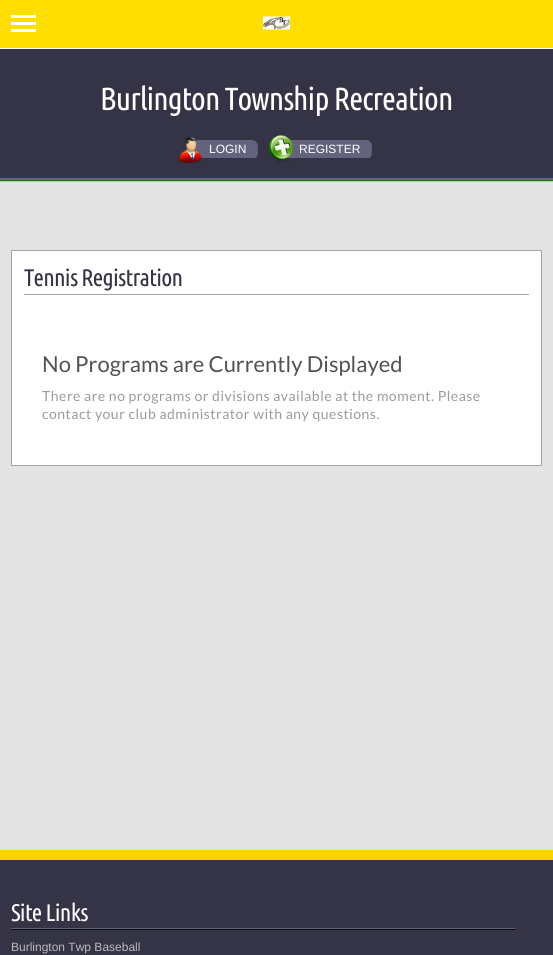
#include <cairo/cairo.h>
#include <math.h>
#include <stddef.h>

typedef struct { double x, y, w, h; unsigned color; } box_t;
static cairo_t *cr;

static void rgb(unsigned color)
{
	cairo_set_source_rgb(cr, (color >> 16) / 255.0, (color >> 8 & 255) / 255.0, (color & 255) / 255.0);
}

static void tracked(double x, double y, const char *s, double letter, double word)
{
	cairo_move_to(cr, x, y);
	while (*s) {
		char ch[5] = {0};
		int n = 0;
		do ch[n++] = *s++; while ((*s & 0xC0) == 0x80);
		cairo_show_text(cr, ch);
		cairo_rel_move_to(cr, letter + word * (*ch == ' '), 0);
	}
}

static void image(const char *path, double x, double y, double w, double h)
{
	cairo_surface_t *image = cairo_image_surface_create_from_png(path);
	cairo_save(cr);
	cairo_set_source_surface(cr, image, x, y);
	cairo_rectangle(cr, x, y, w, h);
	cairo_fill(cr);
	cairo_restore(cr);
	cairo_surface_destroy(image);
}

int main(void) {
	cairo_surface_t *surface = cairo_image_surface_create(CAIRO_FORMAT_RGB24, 553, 955);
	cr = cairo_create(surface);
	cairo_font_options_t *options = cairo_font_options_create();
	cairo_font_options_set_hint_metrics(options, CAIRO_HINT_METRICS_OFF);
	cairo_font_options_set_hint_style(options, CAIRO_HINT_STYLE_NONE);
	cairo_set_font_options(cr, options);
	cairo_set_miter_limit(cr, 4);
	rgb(0xe4e4e4);
	cairo_paint(cr);
	rgb(0xffde00);
	cairo_rectangle(cr, 0, 0, 553, 48);
	cairo_fill(cr);
	rgb(0xffffff);
	cairo_rectangle(cr, 0, 48, 553, 1);
	cairo_fill(cr);
	image("img/1.png", 11, 15, 25, 17);
	image("img/2.png", 263, 16, 27, 14);
	rgb(0x343446);
	cairo_rectangle(cr, 0, 49, 553, 129);
	cairo_fill(cr);
	rgb(0x63637d);
	cairo_rectangle(cr, 0, 178, 553, 2);
	cairo_fill(cr);
	image("img/4.png", 193, 140, 65, 18);
	image("img/3.png", 178, 136, 24, 27);
	image("img/6.png", 287, 140, 85, 18);
	image("img/5.png", 269, 135, 24, 28);
	rgb(0xfbd200);
	cairo_rectangle(cr, 0, 181, 553, 1);
	cairo_fill(cr);
	rgb(0x3c6e2b);
	cairo_rectangle(cr, 0, 180, 553, 1);
	cairo_fill(cr);
	rgb(0xffffff);
	cairo_rectangle(cr, 11.5, 250.5, 530, 215);
	cairo_fill_preserve(cr);
	rgb(0xa4a4a4);
	cairo_set_line_width(cr, 1);
	cairo_stroke(cr);
	{
		static const box_t items[] = {
			{24, 294, 505, 1, 0xa4a4a4},
			{0, 860, 553, 95, 0x343446},
			{0, 850, 553, 10, 0xfbd200},
			{11, 928, 504, 1, 0x616179},
			{11, 929, 504, 1, 0x09090c},
		};
		for (size_t i = 0; i < sizeof items / sizeof *items; i++) {
			rgb(items[i].color);
			cairo_rectangle(cr, items[i].x, items[i].y, items[i].w, items[i].h);
			cairo_fill(cr);
		}
	}
	cairo_select_font_face(cr, "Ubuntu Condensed", CAIRO_FONT_SLANT_NORMAL, CAIRO_FONT_WEIGHT_NORMAL);
	cairo_set_font_size(cr, 32);
	rgb(0xffffff);
	tracked(100, 110, "Burlington Township Recreation", -0.95, 0);
	cairo_select_font_face(cr, "Liberation Sans", CAIRO_FONT_SLANT_NORMAL, CAIRO_FONT_WEIGHT_NORMAL);
	cairo_set_font_size(cr, 12);
	cairo_move_to(cr, 209, 153);
	cairo_show_text(cr, "LOGIN");
	cairo_move_to(cr, 299, 153);
	cairo_show_text(cr, "REGISTER");
	cairo_select_font_face(cr, "Ubuntu Condensed", CAIRO_FONT_SLANT_NORMAL, CAIRO_FONT_WEIGHT_NORMAL);
	cairo_set_font_size(cr, 24);
	rgb(0x343446);
	tracked(24, 286, "Tennis Registration", -0.75, 0);
	cairo_select_font_face(cr, "Lato", CAIRO_FONT_SLANT_NORMAL, CAIRO_FONT_WEIGHT_NORMAL);
	cairo_set_font_size(cr, 22);
	rgb(0x525252);
	cairo_move_to(cr, 42, 372);
	cairo_show_text(cr, "No Programs are Currently Displayed");
	cairo_set_font_size(cr, 14);
	rgb(0x9b9b9b);
	tracked(42, 401, "There are no programs or divisions available at the moment. Please", 0.5, 0);
	tracked(42, 419, "contact your club administrator with any questions.", 0.5, 0);
	cairo_select_font_face(cr, "Ubuntu Condensed", CAIRO_FONT_SLANT_NORMAL, CAIRO_FONT_WEIGHT_NORMAL);
	cairo_set_font_size(cr, 24);
	rgb(0xffffff);
	tracked(11, 921, "Site Links", -0.75, 0);
	cairo_select_font_face(cr, "Liberation Sans", CAIRO_FONT_SLANT_NORMAL, CAIRO_FONT_WEIGHT_NORMAL);
	cairo_set_font_size(cr, 12);
	rgb(0xbbbbbb);
	cairo_move_to(cr, 11, 951);
	cairo_show_text(cr, "Burlington Twp Baseball");
	cairo_surface_write_to_png(surface, "page.png");
	cairo_font_options_destroy(options);
	cairo_destroy(cr);
	cairo_surface_destroy(surface);
	return 0;
}
